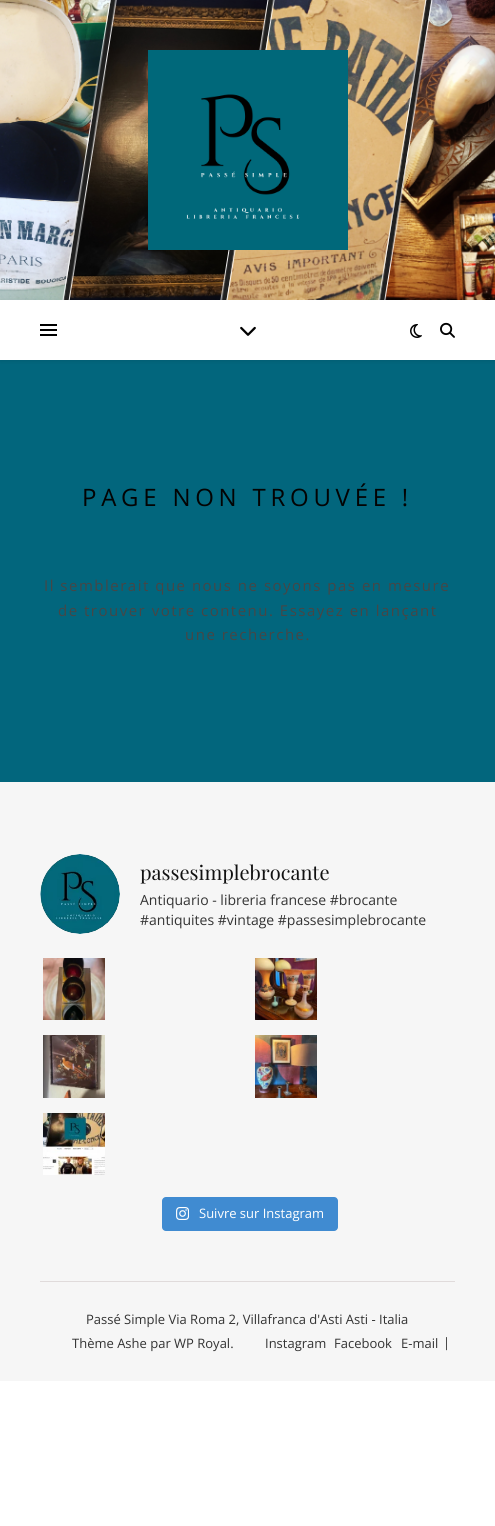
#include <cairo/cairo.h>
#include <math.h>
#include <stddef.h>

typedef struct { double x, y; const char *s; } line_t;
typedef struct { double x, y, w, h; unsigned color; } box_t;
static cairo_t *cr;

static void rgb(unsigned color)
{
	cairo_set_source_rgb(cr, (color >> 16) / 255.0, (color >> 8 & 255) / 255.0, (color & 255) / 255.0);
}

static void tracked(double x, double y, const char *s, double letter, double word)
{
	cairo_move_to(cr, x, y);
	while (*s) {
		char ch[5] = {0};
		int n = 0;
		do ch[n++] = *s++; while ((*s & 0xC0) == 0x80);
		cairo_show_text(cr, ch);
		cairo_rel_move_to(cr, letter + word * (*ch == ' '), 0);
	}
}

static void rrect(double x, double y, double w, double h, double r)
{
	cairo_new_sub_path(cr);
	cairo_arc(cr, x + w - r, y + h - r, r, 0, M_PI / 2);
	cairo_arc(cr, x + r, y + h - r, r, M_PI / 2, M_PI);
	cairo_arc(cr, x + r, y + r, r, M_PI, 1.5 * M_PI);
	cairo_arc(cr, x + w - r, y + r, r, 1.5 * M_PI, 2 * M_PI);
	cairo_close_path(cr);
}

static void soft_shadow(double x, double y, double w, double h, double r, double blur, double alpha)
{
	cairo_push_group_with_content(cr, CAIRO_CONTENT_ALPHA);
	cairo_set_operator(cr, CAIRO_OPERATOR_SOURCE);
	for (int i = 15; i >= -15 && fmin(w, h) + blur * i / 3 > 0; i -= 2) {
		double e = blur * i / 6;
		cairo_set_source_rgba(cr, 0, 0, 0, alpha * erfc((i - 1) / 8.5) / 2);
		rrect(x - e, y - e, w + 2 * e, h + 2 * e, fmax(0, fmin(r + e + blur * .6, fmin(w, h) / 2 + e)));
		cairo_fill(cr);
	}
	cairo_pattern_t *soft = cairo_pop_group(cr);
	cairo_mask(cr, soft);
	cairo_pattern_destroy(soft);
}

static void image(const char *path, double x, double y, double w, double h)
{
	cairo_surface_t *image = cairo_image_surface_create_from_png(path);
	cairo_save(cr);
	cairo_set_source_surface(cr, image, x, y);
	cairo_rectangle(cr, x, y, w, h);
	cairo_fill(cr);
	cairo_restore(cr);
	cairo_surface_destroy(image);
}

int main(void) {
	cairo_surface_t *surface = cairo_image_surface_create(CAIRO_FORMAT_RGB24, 495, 1526);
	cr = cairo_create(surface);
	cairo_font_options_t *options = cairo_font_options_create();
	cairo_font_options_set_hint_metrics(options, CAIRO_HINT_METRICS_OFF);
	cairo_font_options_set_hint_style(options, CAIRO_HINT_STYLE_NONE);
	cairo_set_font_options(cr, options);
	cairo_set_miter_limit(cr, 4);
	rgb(0xffffff);
	cairo_paint(cr);
	rgb(0x02667d);
	cairo_rectangle(cr, 0, 360, 495, 422);
	cairo_fill(cr);
	image("img/1.png", 0, 0, 495, 300);
	image("img/2.png", 148, 50, 200, 200);
	rgb(0x000000);
	soft_shadow(0, 301, 495, 60, 0, 2.5, 0.1);
	{
		static const box_t items[] = {
			{0, 300, 495, 60, 0xffffff},
			{40, 324, 17, 2, 0x000000},
			{40, 329, 17, 2, 0x000000},
			{40, 334, 17, 2, 0x000000},
		};
		for (size_t i = 0; i < sizeof items / sizeof *items; i++) {
			rgb(items[i].color);
			cairo_rectangle(cr, items[i].x, items[i].y, items[i].w, items[i].h);
			cairo_fill(cr);
		}
	}
	image("img/3.png", 240, 326, 16, 10);
	image("img/4.png", 410, 324, 12, 14);
	image("img/5.png", 440, 322, 15, 16);
	rgb(0xf6f6f6);
	cairo_rectangle(cr, 0, 782, 495, 599);
	cairo_fill(cr);
	rgb(0xe0dbdb);
	cairo_rectangle(cr, 40, 1281, 415, 1);
	cairo_fill(cr);
	image("img/6.png", 40, 854, 80, 80);
	image("img/7.png", 43, 958, 62, 62);
	image("img/8.png", 255, 958, 62, 62);
	image("img/9.png", 43, 1035, 62, 63);
	image("img/10.png", 255, 1035, 62, 63);
	image("img/11.png", 43, 1113, 62, 62);
	rgb(0x408bd1);
	rrect(162, 1197, 176, 34, 4);
	cairo_fill(cr);
	image("img/12.png", 176, 1207, 13, 13);
	cairo_select_font_face(cr, "Open Sans", CAIRO_FONT_SLANT_NORMAL, CAIRO_FONT_WEIGHT_NORMAL);
	cairo_set_font_size(cr, 24);
	rgb(0x030303);
	tracked(82, 506, "PAGE NON TROUVÉE !", 4.75, 0);
	cairo_set_font_size(cr, 15);
	rgb(0x464646);
	{
		static const line_t items[] = {
			{44, 591, "Il semblerait que nous ne soyons pas en mesure"},
			{58, 616, "de trouver votre contenu. Essayez en lançant"},
			{185, 640, "une recherche."},
		};
		for (size_t i = 0; i < sizeof items / sizeof *items; i++) {
			tracked(items[i].x, items[i].y, items[i].s, 1.5, 0);
		}
	}
	cairo_select_font_face(cr, "Playfair Display", CAIRO_FONT_SLANT_NORMAL, CAIRO_FONT_WEIGHT_NORMAL);
	cairo_set_font_size(cr, 20);
	rgb(0x111111);
	cairo_move_to(cr, 140, 880);
	cairo_show_text(cr, "passesimplebrocante");
	cairo_select_font_face(cr, "Open Sans", CAIRO_FONT_SLANT_NORMAL, CAIRO_FONT_WEIGHT_NORMAL);
	cairo_set_font_size(cr, 14);
	rgb(0x333333);
	cairo_move_to(cr, 140, 905);
	cairo_show_text(cr, "Antiquario - libreria francese #brocante");
	cairo_move_to(cr, 140, 925);
	cairo_show_text(cr, "#antiquites #vintage #passesimplebrocante");
	cairo_set_font_size(cr, 13);
	rgb(0xffffff);
	cairo_move_to(cr, 199, 1218);
	cairo_show_text(cr, "Suivre sur Instagram");
	rgb(0x333333);
	{
		static const line_t items[] = {
			{86, 1324, "Passé Simple Via Roma 2, Villafranca d'Asti Asti - Italia"},
			{72, 1348, "Thème Ashe par WP Royal."},
			{265, 1348, "Instagram"},
			{334, 1348, "Facebook"},
			{401, 1348, "E-mail"},
			{443, 1347, "|"},
		};
		for (size_t i = 0; i < sizeof items / sizeof *items; i++) {
			cairo_move_to(cr, items[i].x, items[i].y);
			cairo_show_text(cr, items[i].s);
		}
	}
	cairo_surface_write_to_png(surface, "page.png");
	cairo_font_options_destroy(options);
	cairo_destroy(cr);
	cairo_surface_destroy(surface);
	return 0;
}
